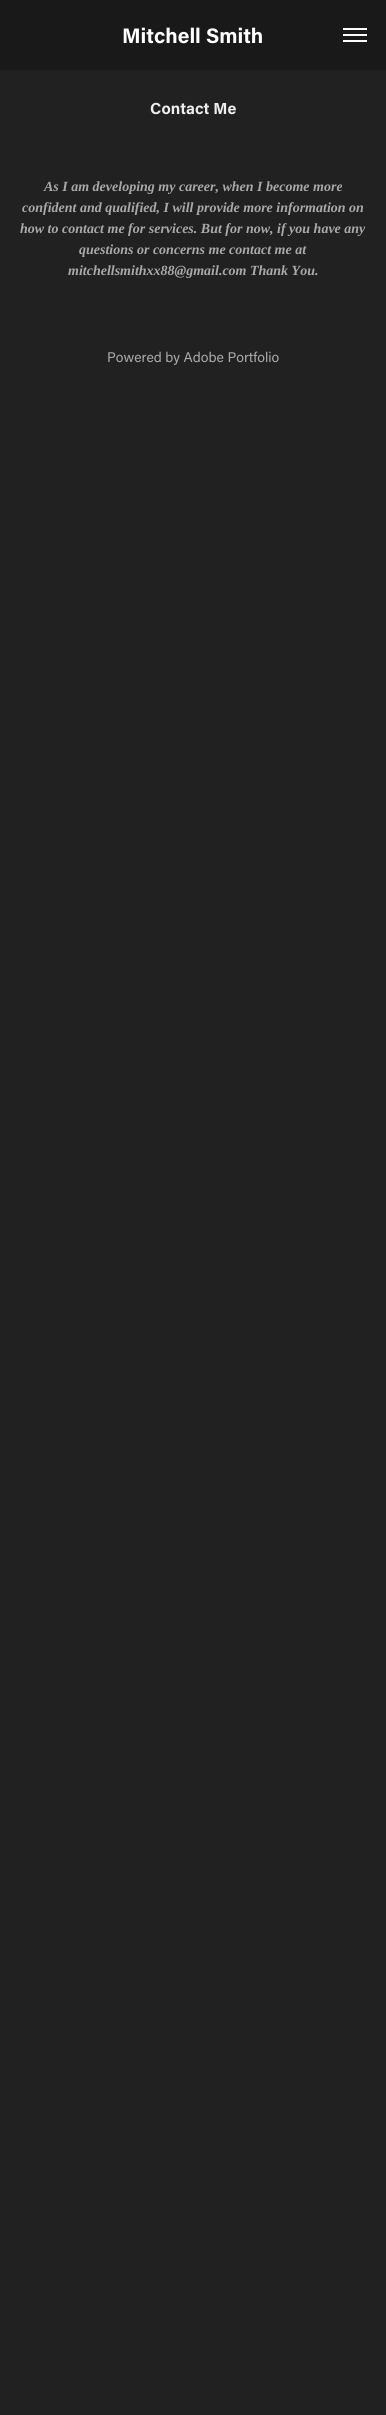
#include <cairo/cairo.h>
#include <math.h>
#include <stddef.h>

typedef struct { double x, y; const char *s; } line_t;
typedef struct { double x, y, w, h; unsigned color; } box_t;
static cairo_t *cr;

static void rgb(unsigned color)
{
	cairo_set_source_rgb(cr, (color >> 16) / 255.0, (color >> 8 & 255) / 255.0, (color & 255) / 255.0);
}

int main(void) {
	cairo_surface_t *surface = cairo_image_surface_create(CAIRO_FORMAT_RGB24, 386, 2415);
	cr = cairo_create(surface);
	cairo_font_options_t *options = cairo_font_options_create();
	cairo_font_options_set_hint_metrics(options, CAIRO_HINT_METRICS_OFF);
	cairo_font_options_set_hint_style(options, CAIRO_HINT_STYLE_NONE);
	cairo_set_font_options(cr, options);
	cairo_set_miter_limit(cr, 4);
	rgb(0x212121);
	cairo_paint(cr);
	{
		static const box_t items[] = {
			{0, 0, 386, 70, 0x191919},
			{343, 28, 24, 2, 0xffffff},
			{343, 34, 24, 2, 0xffffff},
			{343, 40, 24, 2, 0xffffff},
		};
		for (size_t i = 0; i < sizeof items / sizeof *items; i++) {
			rgb(items[i].color);
			cairo_rectangle(cr, items[i].x, items[i].y, items[i].w, items[i].h);
			cairo_fill(cr);
		}
	}
	cairo_select_font_face(cr, "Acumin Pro", CAIRO_FONT_SLANT_NORMAL, CAIRO_FONT_WEIGHT_BOLD);
	cairo_set_font_size(cr, 21);
	cairo_move_to(cr, 122, 43);
	cairo_show_text(cr, "Mitchell Smith");
	cairo_set_font_size(cr, 16);
	rgb(0xeeeeee);
	cairo_move_to(cr, 150, 114);
	cairo_show_text(cr, "Contact Me");
	cairo_select_font_face(cr, "Liberation Serif", CAIRO_FONT_SLANT_ITALIC, CAIRO_FONT_WEIGHT_BOLD);
	cairo_set_font_size(cr, 14);
	rgb(0xa9a9a9);
	{
		static const line_t items[] = {
			{44, 191, "As I am developing my career, when I become more"},
			{22, 212, "confident and qualified, I will provide more information on"},
			{20, 233, "how to contact me for services. But for now, if you have any"},
			{79, 254, "questions or concerns me contact me at"},
			{68, 275, "mitchellsmithxx88@gmail.com Thank You."},
		};
		for (size_t i = 0; i < sizeof items / sizeof *items; i++) {
			cairo_move_to(cr, items[i].x, items[i].y);
			cairo_show_text(cr, items[i].s);
		}
	}
	cairo_select_font_face(cr, "Acumin Pro", CAIRO_FONT_SLANT_NORMAL, CAIRO_FONT_WEIGHT_NORMAL);
	cairo_move_to(cr, 107, 362);
	cairo_show_text(cr, "Powered by Adobe Portfolio");
	cairo_surface_write_to_png(surface, "page.png");
	cairo_font_options_destroy(options);
	cairo_destroy(cr);
	cairo_surface_destroy(surface);
	return 0;
}
